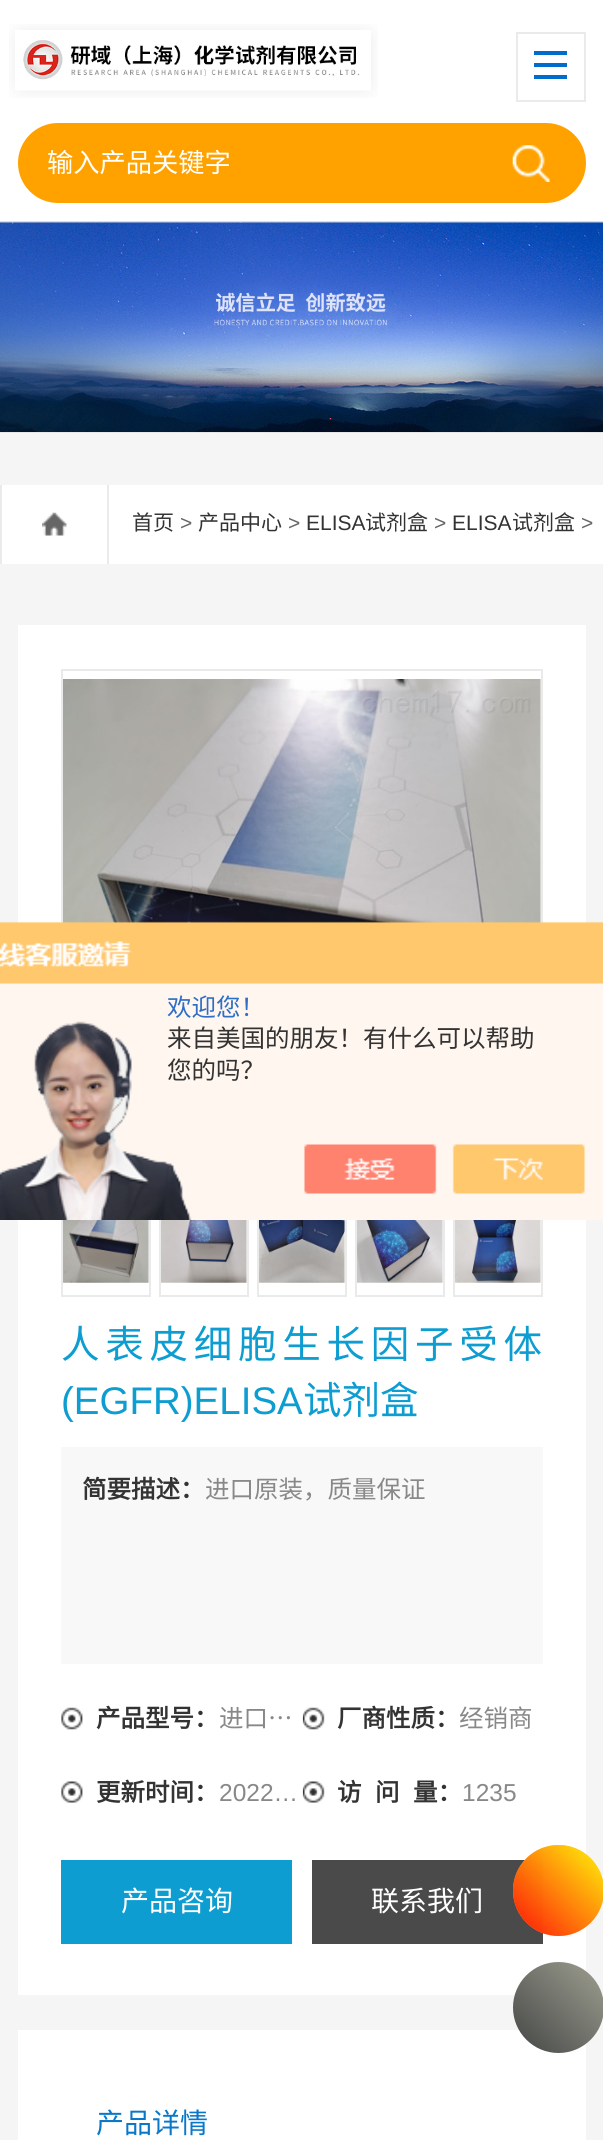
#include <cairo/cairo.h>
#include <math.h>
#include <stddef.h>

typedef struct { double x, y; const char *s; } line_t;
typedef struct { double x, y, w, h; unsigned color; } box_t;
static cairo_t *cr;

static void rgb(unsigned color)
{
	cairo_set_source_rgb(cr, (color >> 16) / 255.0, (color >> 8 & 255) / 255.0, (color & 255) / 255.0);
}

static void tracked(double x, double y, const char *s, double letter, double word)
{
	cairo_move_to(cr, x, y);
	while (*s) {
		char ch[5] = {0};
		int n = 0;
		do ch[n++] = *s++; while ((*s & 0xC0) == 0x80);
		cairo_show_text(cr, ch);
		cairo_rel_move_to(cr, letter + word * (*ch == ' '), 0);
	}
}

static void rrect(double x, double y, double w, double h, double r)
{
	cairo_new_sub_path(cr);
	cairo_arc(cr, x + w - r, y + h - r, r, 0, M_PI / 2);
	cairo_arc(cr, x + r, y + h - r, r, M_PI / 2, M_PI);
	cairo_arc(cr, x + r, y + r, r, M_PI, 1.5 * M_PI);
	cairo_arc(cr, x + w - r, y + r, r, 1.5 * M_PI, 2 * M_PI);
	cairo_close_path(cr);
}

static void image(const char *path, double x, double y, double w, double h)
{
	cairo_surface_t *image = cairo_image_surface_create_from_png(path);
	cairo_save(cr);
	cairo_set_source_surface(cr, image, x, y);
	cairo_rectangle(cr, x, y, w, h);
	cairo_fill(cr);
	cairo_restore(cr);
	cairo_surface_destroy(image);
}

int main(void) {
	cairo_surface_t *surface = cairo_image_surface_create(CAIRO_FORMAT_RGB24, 603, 2140);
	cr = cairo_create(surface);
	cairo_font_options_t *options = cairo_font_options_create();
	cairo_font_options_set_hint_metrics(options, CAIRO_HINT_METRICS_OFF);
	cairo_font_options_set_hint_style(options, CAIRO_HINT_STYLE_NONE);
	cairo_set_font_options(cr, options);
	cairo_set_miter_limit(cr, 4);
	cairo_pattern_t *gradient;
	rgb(0xffffff);
	cairo_paint(cr);
	cairo_rectangle(cr, 517, 33, 68, 68);
	rgb(0xeaeaea);
	cairo_stroke(cr);
	{
		static const box_t items[] = {
			{534, 51, 33, 4, 0x006ccc},
			{534, 63, 33, 4, 0x006ccc},
			{534, 75, 33, 4, 0x006ccc},
			{0, 221, 603, 2, 0xdedede},
		};
		for (size_t i = 0; i < sizeof items / sizeof *items; i++) {
			rgb(items[i].color);
			cairo_rectangle(cr, items[i].x, items[i].y, items[i].w, items[i].h);
			cairo_fill(cr);
		}
	}
	image("img/1.png", 9, 24, 369, 74);
	rgb(0xffa200);
	rrect(18, 123, 568, 80, 40);
	cairo_fill(cr);
	image("img/2.png", 512, 145, 38, 37);
	rgb(0xf5f5f5);
	cairo_rectangle(cr, 0, 432, 603, 1708);
	cairo_fill(cr);
	image("img/3.png", 0, 222, 603, 211);
	rgb(0xffffff);
	cairo_rectangle(cr, 2, 485, 601, 79);
	cairo_fill(cr);
	image("img/4.png", 42, 512, 25, 24);
	{
		static const box_t items[] = {
			{107, 485, 2, 79, 0xeaeaea},
			{0, 485, 2, 79, 0xeaeaea},
			{18, 625, 568, 1370, 0xffffff},
		};
		for (size_t i = 0; i < sizeof items / sizeof *items; i++) {
			rgb(items[i].color);
			cairo_rectangle(cr, items[i].x, items[i].y, items[i].w, items[i].h);
			cairo_fill(cr);
		}
	}
	cairo_rectangle(cr, 62, 670, 480, 496);
	rgb(0xeaeaea);
	cairo_stroke(cr);
	image("img/5.png", 63, 679, 478, 244);
	cairo_rectangle(cr, 62, 1186, 88, 110);
	cairo_stroke(cr);
	image("img/6.png", 63, 1220, 86, 63);
	cairo_rectangle(cr, 160, 1186, 88, 110);
	cairo_stroke(cr);
	image("img/7.png", 161, 1220, 86, 63);
	cairo_rectangle(cr, 258, 1186, 88, 110);
	cairo_stroke(cr);
	image("img/8.png", 259, 1220, 86, 63);
	cairo_rectangle(cr, 356, 1186, 88, 110);
	cairo_stroke(cr);
	image("img/9.png", 357, 1220, 86, 63);
	cairo_rectangle(cr, 454, 1186, 88, 110);
	cairo_stroke(cr);
	image("img/10.png", 455, 1220, 86, 63);
	rgb(0xf8f8f8);
	cairo_rectangle(cr, 61, 1447, 482, 217);
	cairo_fill(cr);
	image("img/11.png", 61, 1707, 22, 23);
	image("img/12.png", 302, 1707, 23, 23);
	image("img/13.png", 61, 1781, 22, 22);
	image("img/14.png", 302, 1781, 23, 22);
	{
		static const box_t items[] = {
			{61, 1860, 231, 84, 0x0d9dd1},
			{312, 1860, 231, 84, 0x4a4a4a},
			{18, 2030, 568, 110, 0xffffff},
		};
		for (size_t i = 0; i < sizeof items / sizeof *items; i++) {
			rgb(items[i].color);
			cairo_rectangle(cr, items[i].x, items[i].y, items[i].w, items[i].h);
			cairo_fill(cr);
		}
	}
	image("img/15.png", 0, 921, 603, 299);
	cairo_set_source_rgba(cr, 0.996, 0.714, 0.357, 0.9);
	cairo_arc(cr, 558.5, 1890.5, 45.5, 0, 2 * M_PI);
	cairo_fill(cr);
	gradient = cairo_pattern_create_linear(513, 1936, 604, 1845);
	cairo_pattern_add_color_stop_rgba(gradient, 0, 1, 0, 0, 0.9);
	cairo_pattern_add_color_stop_rgba(gradient, 1, 1, 1, 0, 0.9);
	cairo_set_source(cr, gradient);
	cairo_pattern_destroy(gradient);
	cairo_arc(cr, 558.5, 1890.5, 45.5, 0, 2 * M_PI);
	cairo_fill(cr);
	gradient = cairo_pattern_create_linear(513, 2053, 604, 1962);
	cairo_pattern_add_color_stop_rgba(gradient, 0, 0.267, 0.275, 0.271, 1);
	cairo_pattern_add_color_stop_rgba(gradient, 1, 0.624, 0.624, 0.569, 1);
	cairo_set_source(cr, gradient);
	cairo_pattern_destroy(gradient);
	cairo_arc(cr, 558.5, 2007.5, 45.5, 0, 2 * M_PI);
	cairo_fill(cr);
	cairo_select_font_face(cr, "Noto Sans CJK SC", CAIRO_FONT_SLANT_NORMAL, CAIRO_FONT_WEIGHT_NORMAL);
	cairo_set_font_size(cr, 26.25);
	rgb(0xffffff);
	cairo_move_to(cr, 47, 172);
	cairo_show_text(cr, "输入产品关键字");
	cairo_set_font_size(cr, 21);
	rgb(0x333333);
	cairo_move_to(cr, 132, 530);
	cairo_show_text(cr, "首页");
	cairo_select_font_face(cr, "Liberation Sans", CAIRO_FONT_SLANT_NORMAL, CAIRO_FONT_WEIGHT_NORMAL);
	rgb(0x666666);
	cairo_move_to(cr, 180, 530);
	cairo_show_text(cr, ">");
	cairo_select_font_face(cr, "Noto Sans CJK SC", CAIRO_FONT_SLANT_NORMAL, CAIRO_FONT_WEIGHT_NORMAL);
	rgb(0x333333);
	cairo_move_to(cr, 198, 530);
	cairo_show_text(cr, "产品中心");
	cairo_select_font_face(cr, "Liberation Sans", CAIRO_FONT_SLANT_NORMAL, CAIRO_FONT_WEIGHT_NORMAL);
	rgb(0x666666);
	cairo_move_to(cr, 288, 530);
	cairo_show_text(cr, ">");
	rgb(0x333333);
	cairo_move_to(cr, 306, 530);
	cairo_show_text(cr, "ELISA");
	cairo_select_font_face(cr, "Noto Sans CJK SC", CAIRO_FONT_SLANT_NORMAL, CAIRO_FONT_WEIGHT_NORMAL);
	cairo_move_to(cr, 365, 530);
	cairo_show_text(cr, "试剂盒");
	cairo_select_font_face(cr, "Liberation Sans", CAIRO_FONT_SLANT_NORMAL, CAIRO_FONT_WEIGHT_NORMAL);
	rgb(0x666666);
	cairo_move_to(cr, 434, 530);
	cairo_show_text(cr, ">");
	rgb(0x333333);
	cairo_move_to(cr, 452, 530);
	cairo_show_text(cr, "ELISA");
	cairo_select_font_face(cr, "Noto Sans CJK SC", CAIRO_FONT_SLANT_NORMAL, CAIRO_FONT_WEIGHT_NORMAL);
	cairo_move_to(cr, 512, 530);
	cairo_show_text(cr, "试剂盒");
	cairo_select_font_face(cr, "Liberation Sans", CAIRO_FONT_SLANT_NORMAL, CAIRO_FONT_WEIGHT_NORMAL);
	rgb(0x666666);
	cairo_move_to(cr, 581, 530);
	cairo_show_text(cr, ">");
	cairo_select_font_face(cr, "Noto Sans CJK SC", CAIRO_FONT_SLANT_NORMAL, CAIRO_FONT_WEIGHT_NORMAL);
	cairo_set_font_size(cr, 38.5);
	rgb(0x0d9dd1);
	tracked(61, 1358, "人表皮细胞生长因子受体", 5.75, 0);
	cairo_select_font_face(cr, "Liberation Sans", CAIRO_FONT_SLANT_NORMAL, CAIRO_FONT_WEIGHT_NORMAL);
	cairo_move_to(cr, 61, 1414);
	cairo_show_text(cr, "(EGFR)ELISA");
	cairo_select_font_face(cr, "Noto Sans CJK SC", CAIRO_FONT_SLANT_NORMAL, CAIRO_FONT_WEIGHT_NORMAL);
	cairo_move_to(cr, 303, 1414);
	cairo_show_text(cr, "试剂盒");
	cairo_select_font_face(cr, "Noto Sans CJK SC", CAIRO_FONT_SLANT_NORMAL, CAIRO_FONT_WEIGHT_BOLD);
	cairo_set_font_size(cr, 24.5);
	rgb(0x333333);
	cairo_move_to(cr, 82, 1498);
	cairo_show_text(cr, "简要描述：");
	cairo_select_font_face(cr, "Noto Sans CJK SC", CAIRO_FONT_SLANT_NORMAL, CAIRO_FONT_WEIGHT_NORMAL);
	rgb(0x888888);
	cairo_move_to(cr, 205, 1498);
	cairo_show_text(cr, "进口原装，质量保证");
	cairo_select_font_face(cr, "Noto Sans CJK SC", CAIRO_FONT_SLANT_NORMAL, CAIRO_FONT_WEIGHT_BOLD);
	rgb(0x333333);
	cairo_move_to(cr, 96, 1727);
	cairo_show_text(cr, "产品型号：");
	cairo_select_font_face(cr, "Noto Sans CJK SC", CAIRO_FONT_SLANT_NORMAL, CAIRO_FONT_WEIGHT_NORMAL);
	rgb(0x888888);
	cairo_move_to(cr, 219, 1727);
	cairo_show_text(cr, "进口…");
	cairo_select_font_face(cr, "Noto Sans CJK SC", CAIRO_FONT_SLANT_NORMAL, CAIRO_FONT_WEIGHT_BOLD);
	rgb(0x333333);
	cairo_move_to(cr, 337, 1727);
	cairo_show_text(cr, "厂商性质：");
	cairo_select_font_face(cr, "Noto Sans CJK SC", CAIRO_FONT_SLANT_NORMAL, CAIRO_FONT_WEIGHT_NORMAL);
	rgb(0x888888);
	cairo_move_to(cr, 459, 1727);
	cairo_show_text(cr, "经销商");
	cairo_select_font_face(cr, "Noto Sans CJK SC", CAIRO_FONT_SLANT_NORMAL, CAIRO_FONT_WEIGHT_BOLD);
	rgb(0x333333);
	cairo_move_to(cr, 96, 1801);
	cairo_show_text(cr, "更新时间：");
	cairo_select_font_face(cr, "Liberation Sans", CAIRO_FONT_SLANT_NORMAL, CAIRO_FONT_WEIGHT_NORMAL);
	rgb(0x888888);
	cairo_move_to(cr, 219, 1801);
	cairo_show_text(cr, "2022…");
	cairo_select_font_face(cr, "Noto Sans CJK SC", CAIRO_FONT_SLANT_NORMAL, CAIRO_FONT_WEIGHT_BOLD);
	rgb(0x333333);
	{
		static const line_t items[] = {
			{337, 1801, "访"},
			{375, 1801, "问"},
			{413, 1801, "量："},
		};
		for (size_t i = 0; i < sizeof items / sizeof *items; i++) {
			cairo_move_to(cr, items[i].x, items[i].y);
			cairo_show_text(cr, items[i].s);
		}
	}
	cairo_select_font_face(cr, "Liberation Sans", CAIRO_FONT_SLANT_NORMAL, CAIRO_FONT_WEIGHT_NORMAL);
	rgb(0x888888);
	cairo_move_to(cr, 462, 1801);
	cairo_show_text(cr, "1235");
	cairo_select_font_face(cr, "Noto Sans CJK SC", CAIRO_FONT_SLANT_NORMAL, CAIRO_FONT_WEIGHT_NORMAL);
	cairo_set_font_size(cr, 28);
	rgb(0xffffff);
	cairo_move_to(cr, 121, 1911);
	cairo_show_text(cr, "产品咨询");
	cairo_move_to(cr, 371, 1911);
	cairo_show_text(cr, "联系我们");
	rgb(0x0978c9);
	cairo_move_to(cr, 96, 2133);
	cairo_show_text(cr, "产品详情");
	cairo_set_font_size(cr, 24.5);
	rgb(0x2e6ec6);
	cairo_move_to(cr, 167, 1016);
	cairo_show_text(cr, "欢迎您！");
	rgb(0x333333);
	cairo_move_to(cr, 167, 1047);
	cairo_show_text(cr, "来自美国的朋友！有什么可以帮助");
	cairo_move_to(cr, 167, 1079);
	cairo_show_text(cr, "您的吗？");
	cairo_surface_write_to_png(surface, "page.png");
	cairo_font_options_destroy(options);
	cairo_destroy(cr);
	cairo_surface_destroy(surface);
	return 0;
}
